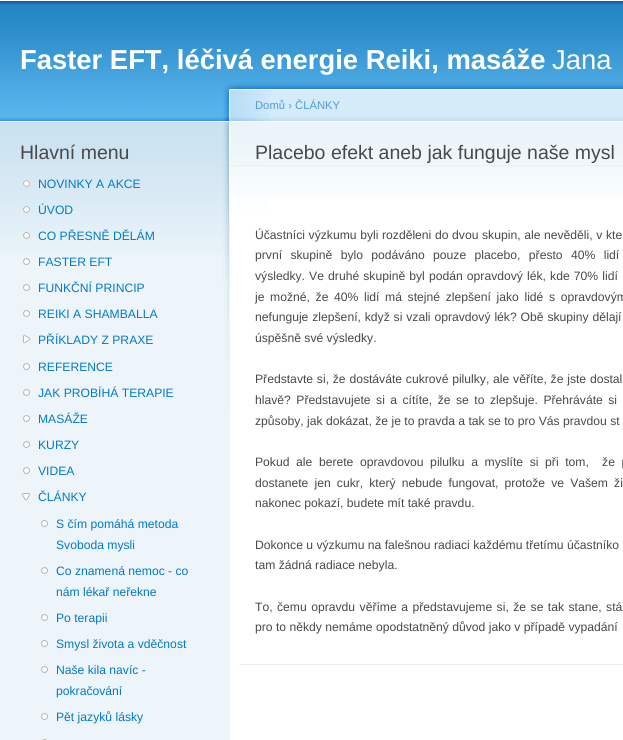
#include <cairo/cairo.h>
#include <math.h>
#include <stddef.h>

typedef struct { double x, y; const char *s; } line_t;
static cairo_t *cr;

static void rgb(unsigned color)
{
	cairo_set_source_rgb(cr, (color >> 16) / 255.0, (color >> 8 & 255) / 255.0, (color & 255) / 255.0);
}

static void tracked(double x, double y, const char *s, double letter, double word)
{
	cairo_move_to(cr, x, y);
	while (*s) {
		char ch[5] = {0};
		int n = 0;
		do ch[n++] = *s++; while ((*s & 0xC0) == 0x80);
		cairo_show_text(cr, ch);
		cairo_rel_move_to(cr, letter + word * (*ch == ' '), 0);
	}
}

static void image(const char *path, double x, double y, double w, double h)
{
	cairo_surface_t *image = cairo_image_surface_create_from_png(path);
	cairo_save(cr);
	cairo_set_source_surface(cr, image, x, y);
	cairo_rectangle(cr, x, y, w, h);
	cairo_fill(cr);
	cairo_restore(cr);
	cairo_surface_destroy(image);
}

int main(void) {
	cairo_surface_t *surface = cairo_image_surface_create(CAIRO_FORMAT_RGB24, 623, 740);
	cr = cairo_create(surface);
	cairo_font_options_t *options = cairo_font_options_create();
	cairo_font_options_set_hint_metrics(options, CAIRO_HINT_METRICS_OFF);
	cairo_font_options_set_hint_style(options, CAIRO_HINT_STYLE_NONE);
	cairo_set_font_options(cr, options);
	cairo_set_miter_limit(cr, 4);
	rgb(0xedf5fa);
	cairo_paint(cr);
	image("img/1.png", 0, 0, 623, 255);
	image("img/2.png", 23, 180, 7, 7);
	image("img/3.png", 23, 206, 7, 7);
	image("img/4.png", 23, 232, 7, 7);
	image("img/5.png", 23, 258, 7, 7);
	image("img/5.png", 23, 284, 7, 7);
	image("img/5.png", 23, 310, 7, 7);
	image("img/6.png", 23, 334, 8, 10);
	image("img/5.png", 23, 363, 7, 7);
	image("img/5.png", 23, 389, 7, 7);
	image("img/5.png", 23, 415, 7, 7);
	image("img/5.png", 23, 441, 7, 7);
	image("img/5.png", 23, 467, 7, 7);
	image("img/7.png", 21, 493, 10, 8);
	image("img/5.png", 41, 520, 7, 7);
	image("img/5.png", 41, 567, 7, 7);
	image("img/5.png", 41, 614, 7, 7);
	image("img/5.png", 41, 640, 7, 7);
	image("img/5.png", 41, 666, 7, 7);
	image("img/5.png", 41, 713, 7, 7);
	image("img/8.png", 42, 739, 5, 1);
	rgb(0xffffff);
	cairo_rectangle(cr, 230, 197, 393, 543);
	cairo_fill(cr);
	image("img/9.png", 230, 80, 393, 117);
	image("img/10.png", 222, 84, 48, 326);
	rgb(0xe9eff3);
	cairo_rectangle(cr, 229, 165, 394, 1);
	cairo_fill(cr);
	cairo_rectangle(cr, 239, 664, 384, 1);
	cairo_fill(cr);
	cairo_select_font_face(cr, "Liberation Sans", CAIRO_FONT_SLANT_NORMAL, CAIRO_FONT_WEIGHT_BOLD);
	cairo_set_font_size(cr, 27.4);
	rgb(0xffffff);
	cairo_move_to(cr, 20, 69);
	cairo_show_text(cr, "Faster EFT, léčivá energie Reiki, masáže");
	cairo_select_font_face(cr, "Liberation Sans", CAIRO_FONT_SLANT_NORMAL, CAIRO_FONT_WEIGHT_NORMAL);
	cairo_move_to(cr, 552, 69);
	cairo_show_text(cr, "Jana");
	cairo_set_font_size(cr, 19.5);
	rgb(0x494949);
	cairo_move_to(cr, 20, 159);
	cairo_show_text(cr, "Hlavní menu");
	cairo_set_font_size(cr, 12.15);
	rgb(0x027ac6);
	{
		static const line_t items[] = {
			{38, 188, "NOVINKY A AKCE"},
			{38, 214, "ÚVOD"},
			{38, 240, "CO PŘESNĚ DĚLÁM"},
			{38, 266, "FASTER EFT"},
			{38, 292, "FUNKČNÍ PRINCIP"},
			{38, 318, "REIKI A SHAMBALLA"},
			{38, 344, "PŘÍKLADY Z PRAXE"},
			{38, 371, "REFERENCE"},
			{38, 397, "JAK PROBÍHÁ TERAPIE"},
			{38, 423, "MASÁŽE"},
			{38, 449, "KURZY"},
			{38, 475, "VIDEA"},
			{38, 501, "ČLÁNKY"},
			{56, 528, "S čím pomáhá metoda"},
			{56, 549, "Svoboda mysli"},
			{56, 575, "Co znamená nemoc - co"},
			{56, 596, "nám lékař neřekne"},
			{56, 622, "Po terapii"},
			{56, 648, "Smysl života a vděčnost"},
			{56, 674, "Naše kila navíc -"},
			{56, 695, "pokračování"},
			{56, 721, "Pět jazyků lásky"},
		};
		for (size_t i = 0; i < sizeof items / sizeof *items; i++) {
			cairo_move_to(cr, items[i].x, items[i].y);
			cairo_show_text(cr, items[i].s);
		}
	}
	cairo_set_font_size(cr, 11.25);
	rgb(0x529ad6);
	cairo_move_to(cr, 255, 109);
	cairo_show_text(cr, "Domů › ČLÁNKY");
	cairo_set_font_size(cr, 19.5);
	rgb(0x494949);
	cairo_move_to(cr, 255, 159);
	cairo_show_text(cr, "Placebo efekt aneb jak funguje naše mysl");
	cairo_set_font_size(cr, 12.15);
	tracked(255, 239, "Účastníci výzkumu byli rozděleni do dvou skupin, ale nevěděli, v kte", 0, 0.25);
	tracked(255, 259, "první skupině bylo podáváno pouze placebo, přesto 40% lidí", 0, 5);
	tracked(255, 280, "výsledky. Ve druhé skupině byl podán opravdový lék, kde 70% lidí", 0, 0.75);
	tracked(255, 301, "je možné, že 40% lidí má stejné zlepšení jako lidé s opravdovým", 0, 2.25);
	tracked(255, 321, "nefunguje zlepšení, když si vzali opravdový lék? Obě skupiny dělají", 0, 0.5);
	cairo_move_to(cr, 255, 342);
	cairo_show_text(cr, "úspěšně své výsledky.");
	tracked(255, 383, "Představte si, že dostáváte cukrové pilulky, ale věříte, že jste dostal", 0, 0.4);
	tracked(255, 404, "hlavě? Představujete si a cítíte, že se to zlepšuje. Přehráváte si", 0, 2.1);
	cairo_move_to(cr, 255, 425);
	cairo_show_text(cr, "způsoby, jak dokázat, že je to pravda a tak se to pro Vás pravdou st");
	tracked(255, 466, "Pokud ale berete opravdovou pilulku a myslíte si při tom,  že p", 0, 3.25);
	tracked(255, 487, "dostanete jen cukr, který nebude fungovat, protože ve Vašem ži", 0, 2.75);
	{
		static const line_t items[] = {
			{255, 507, "nakonec pokazí, budete mít také pravdu."},
			{255, 549, "Dokonce u výzkumu na falešnou radiaci každému třetímu účastníko"},
			{255, 569, "tam žádná radiace nebyla."},
		};
		for (size_t i = 0; i < sizeof items / sizeof *items; i++) {
			cairo_move_to(cr, items[i].x, items[i].y);
			cairo_show_text(cr, items[i].s);
		}
	}
	tracked(255, 611, "To, čemu opravdu věříme a představujeme si, že se tak stane, stá", 0, 1.1);
	cairo_move_to(cr, 255, 631);
	cairo_show_text(cr, "pro to někdy nemáme opodstatněný důvod jako v případě vypadání");
	cairo_surface_write_to_png(surface, "page.png");
	cairo_font_options_destroy(options);
	cairo_destroy(cr);
	cairo_surface_destroy(surface);
	return 0;
}
